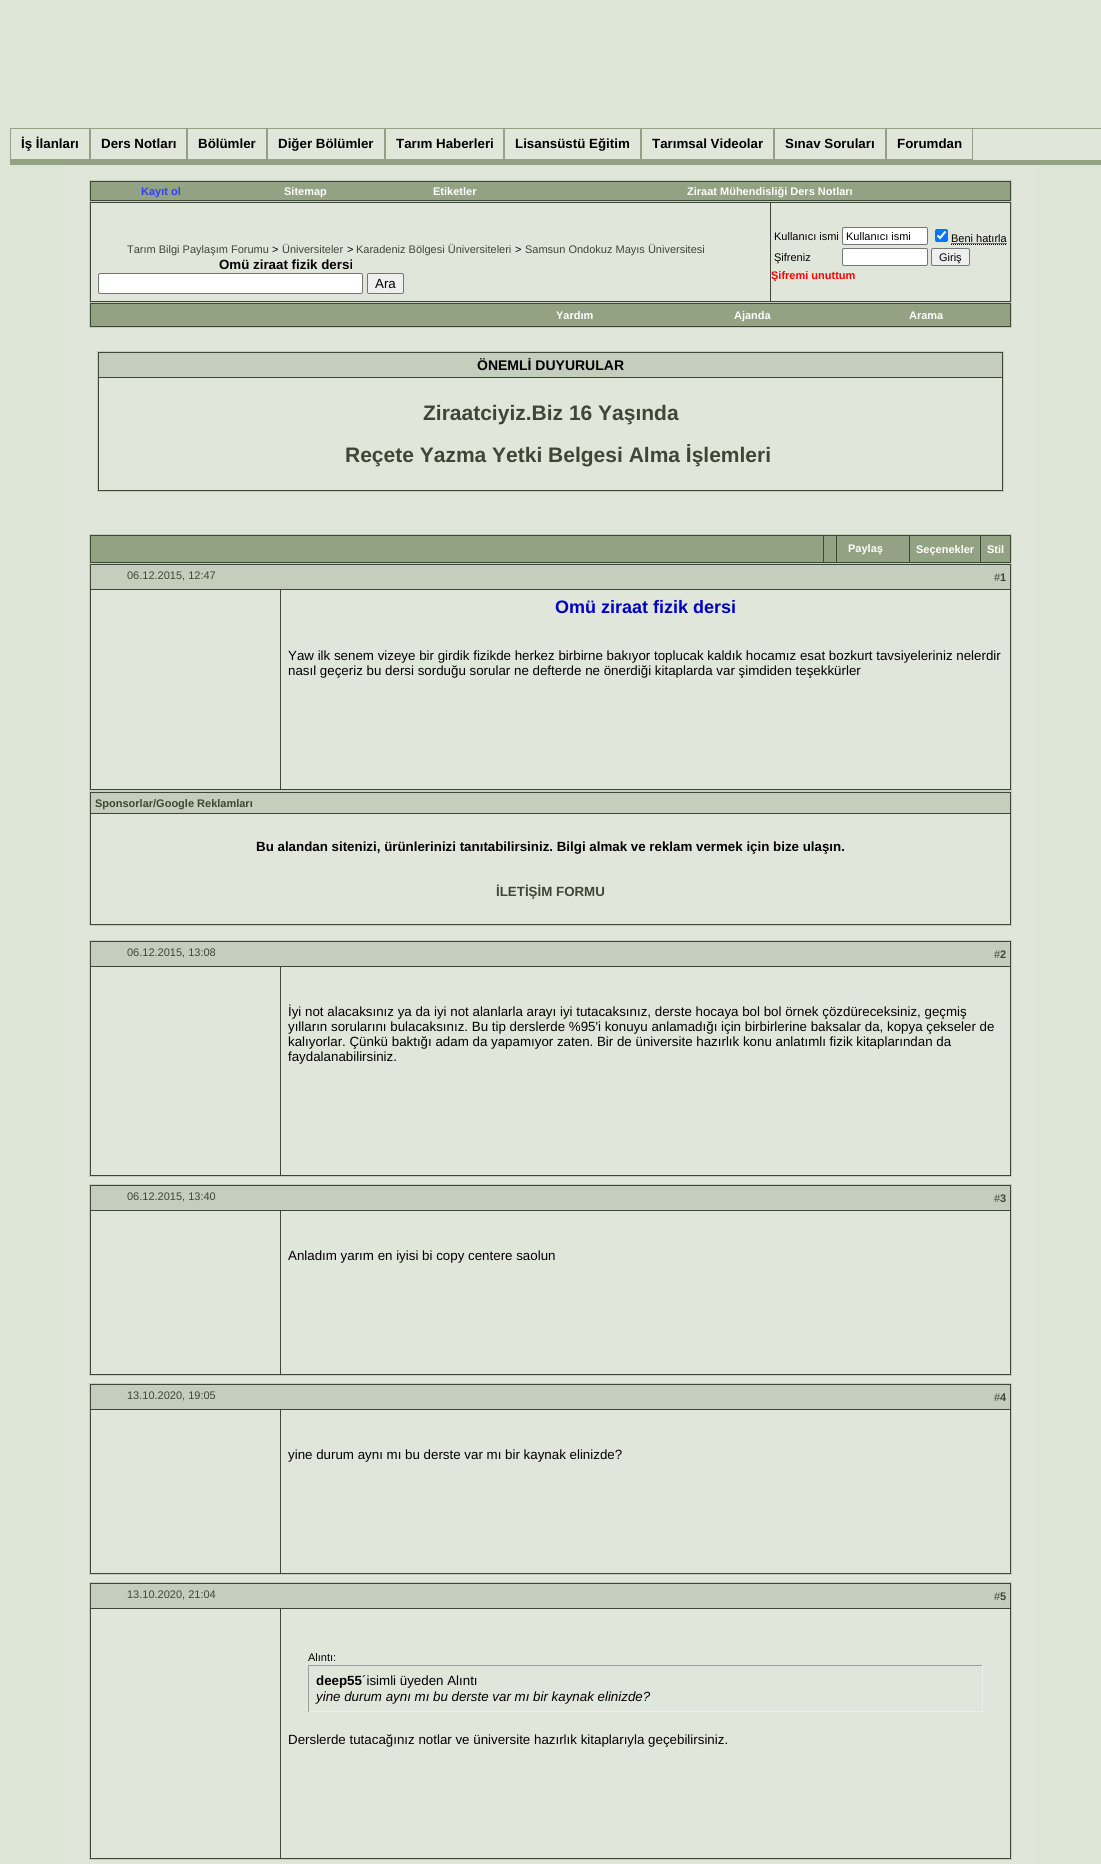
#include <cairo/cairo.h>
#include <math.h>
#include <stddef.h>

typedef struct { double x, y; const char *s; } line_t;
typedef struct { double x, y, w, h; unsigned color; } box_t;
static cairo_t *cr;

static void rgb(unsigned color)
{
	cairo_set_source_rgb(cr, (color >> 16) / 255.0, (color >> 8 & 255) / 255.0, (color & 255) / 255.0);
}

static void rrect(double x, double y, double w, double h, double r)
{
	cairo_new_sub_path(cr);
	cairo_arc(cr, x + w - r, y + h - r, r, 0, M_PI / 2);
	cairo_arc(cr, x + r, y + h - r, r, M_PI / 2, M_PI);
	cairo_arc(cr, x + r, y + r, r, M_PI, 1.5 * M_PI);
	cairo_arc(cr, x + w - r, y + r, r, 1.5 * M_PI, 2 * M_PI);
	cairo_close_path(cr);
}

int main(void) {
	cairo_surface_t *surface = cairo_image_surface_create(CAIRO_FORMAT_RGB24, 1101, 1864);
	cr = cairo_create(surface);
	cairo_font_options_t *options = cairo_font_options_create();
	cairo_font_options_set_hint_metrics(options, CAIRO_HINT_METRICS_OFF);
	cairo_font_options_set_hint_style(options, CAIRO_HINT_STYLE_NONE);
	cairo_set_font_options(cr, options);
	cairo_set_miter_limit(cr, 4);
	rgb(0xdde5d6);
	cairo_paint(cr);
	{
		static const box_t items[] = {
			{10, 128, 1091, 1, 0x92a282},
			{10, 160, 1091, 5, 0x92a282},
			{11, 129, 1090, 30, 0xe1e6db},
			{89, 129, 1, 31, 0x92a282},
			{10, 159, 80, 1, 0x92a282},
			{10, 129, 1, 31, 0x92a282},
			{186, 129, 1, 31, 0x92a282},
			{90, 159, 97, 1, 0x92a282},
			{90, 129, 1, 31, 0x92a282},
			{266, 129, 1, 31, 0x92a282},
			{187, 159, 80, 1, 0x92a282},
			{187, 129, 1, 31, 0x92a282},
			{384, 129, 1, 31, 0x92a282},
			{267, 159, 118, 1, 0x92a282},
			{267, 129, 1, 31, 0x92a282},
			{503, 129, 1, 31, 0x92a282},
			{385, 159, 119, 1, 0x92a282},
			{385, 129, 1, 31, 0x92a282},
			{640, 129, 1, 31, 0x92a282},
			{504, 159, 137, 1, 0x92a282},
			{504, 129, 1, 31, 0x92a282},
			{773, 129, 1, 31, 0x92a282},
			{641, 159, 133, 1, 0x92a282},
			{641, 129, 1, 31, 0x92a282},
			{885, 129, 1, 31, 0x92a282},
			{774, 159, 112, 1, 0x92a282},
			{774, 129, 1, 31, 0x92a282},
			{972, 129, 1, 31, 0x92a282},
			{886, 159, 87, 1, 0x92a282},
			{886, 129, 1, 31, 0x92a282},
			{64, 165, 973, 1699, 0xe1e6db},
			{90, 181, 921, 20, 0x3e4637},
			{89, 180, 923, 1, 0xc5cdbc},
			{1011, 180, 1, 21, 0xc5cdbc},
			{89, 180, 1, 21, 0xc5cdbc},
			{91, 182, 919, 18, 0x92a282},
		};
		for (size_t i = 0; i < sizeof items / sizeof *items; i++) {
			rgb(items[i].color);
			cairo_rectangle(cr, items[i].x, items[i].y, items[i].w, items[i].h);
			cairo_fill(cr);
		}
	}
	rgb(0x3e4637);
	cairo_rectangle(cr, 89.5, 201.5, 922, 101);
	cairo_fill_preserve(cr);
	rgb(0xc5cdbc);
	cairo_set_line_width(cr, 1);
	cairo_stroke(cr);
	rgb(0xe1e6db);
	cairo_rectangle(cr, 91, 203, 679, 98);
	cairo_fill(cr);
	rgb(0xffffff);
	rrect(98.5, 273.5, 264, 20, 1.5);
	cairo_fill_preserve(cr);
	rgb(0x767676);
	cairo_stroke(cr);
	rgb(0xefefef);
	rrect(367.5, 273.5, 36, 20, 1.5);
	cairo_fill_preserve(cr);
	rgb(0x767676);
	cairo_stroke(cr);
	rgb(0xe1e6db);
	cairo_rectangle(cr, 771, 203, 239, 98);
	cairo_fill(cr);
	rgb(0xffffff);
	rrect(842.5, 227.5, 85, 17, 1.5);
	cairo_fill_preserve(cr);
	rgb(0x767676);
	cairo_stroke(cr);
	rgb(0x0075ff);
	rrect(935, 229, 13, 13, 2);
	cairo_fill(cr);
	cairo_new_path(cr);
	cairo_move_to(cr, 937.5, 235.5);
	cairo_line_to(cr, 940, 238);
	cairo_line_to(cr, 945.5, 231.5);
	rgb(0xffffff);
	cairo_set_line_width(cr, 2.1);
	cairo_stroke(cr);
	cairo_new_path(cr);
	cairo_move_to(cr, 951, 244.5);
	cairo_line_to(cr, 1007, 244.5);
	cairo_move_to(cr, 951.5, 243.5);
	cairo_line_to(cr, 1007, 243.5);
	rgb(0x000000);
	cairo_set_line_width(cr, 1);
	cairo_set_dash(cr, (double[]){1, 1}, 2, 0);
	cairo_stroke(cr);
	rgb(0xffffff);
	rrect(842.5, 248.5, 85, 17, 1.5);
	cairo_fill_preserve(cr);
	rgb(0x767676);
	cairo_set_dash(cr, NULL, 0, 0);
	cairo_stroke(cr);
	rgb(0xefefef);
	rrect(931.5, 248.5, 38, 17, 1.5);
	cairo_fill_preserve(cr);
	rgb(0x767676);
	cairo_stroke(cr);
	{
		static const box_t items[] = {
			{90, 303, 921, 24, 0x3e4637},
			{1011, 303, 1, 25, 0xc5cdbc},
			{89, 327, 923, 1, 0xc5cdbc},
			{89, 303, 1, 25, 0xc5cdbc},
			{91, 304, 919, 22, 0x92a282},
		};
		for (size_t i = 0; i < sizeof items / sizeof *items; i++) {
			rgb(items[i].color);
			cairo_rectangle(cr, items[i].x, items[i].y, items[i].w, items[i].h);
			cairo_fill(cr);
		}
	}
	rgb(0x3e4637);
	cairo_rectangle(cr, 97.5, 351.5, 906, 140);
	cairo_fill_preserve(cr);
	rgb(0xc5cdbc);
	cairo_stroke(cr);
	{
		static const box_t items[] = {
			{99, 353, 903, 24, 0xc5cdbc},
			{99, 378, 903, 112, 0xe1e6db},
			{90, 535, 921, 28, 0x3e4637},
			{89, 534, 923, 1, 0xc5cdbc},
			{1011, 534, 1, 29, 0xc5cdbc},
			{89, 534, 1, 29, 0xc5cdbc},
			{91, 536, 732, 26, 0x92a282},
			{824, 536, 12, 26, 0x92a282},
			{837, 536, 72, 26, 0x92a282},
			{910, 536, 70, 26, 0x92a282},
			{981, 536, 29, 26, 0x92a282},
		};
		for (size_t i = 0; i < sizeof items / sizeof *items; i++) {
			rgb(items[i].color);
			cairo_rectangle(cr, items[i].x, items[i].y, items[i].w, items[i].h);
			cairo_fill(cr);
		}
	}
	cairo_rectangle(cr, 89.5, 563.5, 922, 227);
	rgb(0xc5cdbc);
	cairo_stroke(cr);
	{
		static const box_t items[] = {
			{91, 565, 919, 24, 0xc5cdbc},
			{90, 564, 921, 1, 0x3e4637},
			{90, 589, 191, 1, 0x3e4637},
			{90, 564, 1, 196, 0x3e4637},
			{1010, 564, 1, 226, 0x3e4637},
			{281, 589, 730, 1, 0x3e4637},
			{280, 590, 1, 200, 0x3e4637},
			{90, 789, 921, 1, 0x3e4637},
			{90, 760, 1, 30, 0x3e4637},
		};
		for (size_t i = 0; i < sizeof items / sizeof *items; i++) {
			rgb(items[i].color);
			cairo_rectangle(cr, items[i].x, items[i].y, items[i].w, items[i].h);
			cairo_fill(cr);
		}
	}
	cairo_rectangle(cr, 89.5, 791.5, 922, 134);
	cairo_fill_preserve(cr);
	rgb(0xc5cdbc);
	cairo_stroke(cr);
	cairo_rectangle(cr, 91, 793, 919, 20);
	cairo_fill(cr);
	rgb(0xe1e6db);
	cairo_rectangle(cr, 91, 814, 919, 110);
	cairo_fill(cr);
	cairo_rectangle(cr, 89.5, 940.5, 922, 236);
	rgb(0xc5cdbc);
	cairo_stroke(cr);
	{
		static const box_t items[] = {
			{91, 942, 919, 24, 0xc5cdbc},
			{90, 941, 921, 1, 0x3e4637},
			{90, 966, 191, 1, 0x3e4637},
			{90, 941, 1, 205, 0x3e4637},
			{1010, 941, 1, 235, 0x3e4637},
			{281, 966, 730, 1, 0x3e4637},
			{280, 967, 1, 209, 0x3e4637},
			{90, 1175, 921, 1, 0x3e4637},
			{90, 1146, 1, 30, 0x3e4637},
		};
		for (size_t i = 0; i < sizeof items / sizeof *items; i++) {
			rgb(items[i].color);
			cairo_rectangle(cr, items[i].x, items[i].y, items[i].w, items[i].h);
			cairo_fill(cr);
		}
	}
	cairo_rectangle(cr, 89.5, 1184.5, 922, 191);
	rgb(0xc5cdbc);
	cairo_stroke(cr);
	{
		static const box_t items[] = {
			{91, 1186, 919, 24, 0xc5cdbc},
			{90, 1185, 921, 1, 0x3e4637},
			{90, 1210, 191, 1, 0x3e4637},
			{90, 1185, 1, 160, 0x3e4637},
			{1010, 1185, 1, 190, 0x3e4637},
			{281, 1210, 730, 1, 0x3e4637},
			{280, 1211, 1, 164, 0x3e4637},
			{90, 1374, 921, 1, 0x3e4637},
			{90, 1345, 1, 30, 0x3e4637},
		};
		for (size_t i = 0; i < sizeof items / sizeof *items; i++) {
			rgb(items[i].color);
			cairo_rectangle(cr, items[i].x, items[i].y, items[i].w, items[i].h);
			cairo_fill(cr);
		}
	}
	cairo_rectangle(cr, 89.5, 1383.5, 922, 191);
	rgb(0xc5cdbc);
	cairo_stroke(cr);
	{
		static const box_t items[] = {
			{91, 1385, 919, 24, 0xc5cdbc},
			{90, 1384, 921, 1, 0x3e4637},
			{90, 1409, 191, 1, 0x3e4637},
			{90, 1384, 1, 160, 0x3e4637},
			{1010, 1384, 1, 190, 0x3e4637},
			{281, 1409, 730, 1, 0x3e4637},
			{280, 1410, 1, 164, 0x3e4637},
			{90, 1573, 921, 1, 0x3e4637},
			{90, 1544, 1, 30, 0x3e4637},
		};
		for (size_t i = 0; i < sizeof items / sizeof *items; i++) {
			rgb(items[i].color);
			cairo_rectangle(cr, items[i].x, items[i].y, items[i].w, items[i].h);
			cairo_fill(cr);
		}
	}
	cairo_rectangle(cr, 89.5, 1582.5, 922, 277);
	rgb(0xc5cdbc);
	cairo_stroke(cr);
	{
		static const box_t items[] = {
			{91, 1584, 919, 24, 0xc5cdbc},
			{90, 1583, 921, 1, 0x3e4637},
			{90, 1608, 191, 1, 0x3e4637},
			{90, 1583, 1, 246, 0x3e4637},
			{1010, 1583, 1, 276, 0x3e4637},
			{281, 1608, 730, 1, 0x3e4637},
			{280, 1609, 1, 250, 0x3e4637},
			{308, 1665, 675, 1, 0x9f9f9f},
			{982, 1665, 1, 47, 0xeeeeee},
			{308, 1711, 675, 1, 0xeeeeee},
			{308, 1665, 1, 47, 0x9f9f9f},
			{90, 1858, 921, 1, 0x3e4637},
			{90, 1829, 1, 30, 0x3e4637},
		};
		for (size_t i = 0; i < sizeof items / sizeof *items; i++) {
			rgb(items[i].color);
			cairo_rectangle(cr, items[i].x, items[i].y, items[i].w, items[i].h);
			cairo_fill(cr);
		}
	}
	cairo_select_font_face(cr, "Liberation Sans", CAIRO_FONT_SLANT_NORMAL, CAIRO_FONT_WEIGHT_BOLD);
	cairo_set_font_size(cr, 13.33);
	rgb(0x000000);
	{
		static const line_t items[] = {
			{21, 148, "İş İlanları"},
			{101, 148, "Ders Notları"},
			{198, 148, "Bölümler"},
			{278, 148, "Diğer Bölümler"},
			{396, 148, "Tarım Haberleri"},
			{515, 148, "Lisansüstü Eğitim"},
			{652, 148, "Tarımsal Videolar"},
			{785, 148, "Sınav Soruları"},
			{897, 148, "Forumdan"},
		};
		for (size_t i = 0; i < sizeof items / sizeof *items; i++) {
			cairo_move_to(cr, items[i].x, items[i].y);
			cairo_show_text(cr, items[i].s);
		}
	}
	cairo_set_font_size(cr, 11);
	rgb(0x2b41fd);
	cairo_move_to(cr, 141, 195);
	cairo_show_text(cr, "Kayıt ol");
	rgb(0xffffff);
	{
		static const line_t items[] = {
			{284, 195, "Sitemap"},
			{433, 195, "Etiketler"},
			{687, 195, "Ziraat Mühendisliği Ders Notları"},
		};
		for (size_t i = 0; i < sizeof items / sizeof *items; i++) {
			cairo_move_to(cr, items[i].x, items[i].y);
			cairo_show_text(cr, items[i].s);
		}
	}
	cairo_select_font_face(cr, "Liberation Sans", CAIRO_FONT_SLANT_NORMAL, CAIRO_FONT_WEIGHT_NORMAL);
	rgb(0x3e4637);
	cairo_move_to(cr, 127, 253);
	cairo_show_text(cr, "Tarım Bilgi Paylaşım Forumu");
	rgb(0x000000);
	cairo_move_to(cr, 272, 253);
	cairo_show_text(cr, ">");
	rgb(0x3e4637);
	cairo_move_to(cr, 282, 253);
	cairo_show_text(cr, "Üniversiteler");
	rgb(0x000000);
	cairo_move_to(cr, 347, 253);
	cairo_show_text(cr, ">");
	rgb(0x3e4637);
	cairo_move_to(cr, 356, 253);
	cairo_show_text(cr, "Karadeniz Bölgesi Üniversiteleri");
	rgb(0x000000);
	cairo_move_to(cr, 515, 253);
	cairo_show_text(cr, ">");
	rgb(0x3e4637);
	cairo_move_to(cr, 525, 253);
	cairo_show_text(cr, "Samsun Ondokuz Mayıs Üniversitesi");
	cairo_select_font_face(cr, "Liberation Sans", CAIRO_FONT_SLANT_NORMAL, CAIRO_FONT_WEIGHT_BOLD);
	cairo_set_font_size(cr, 13.33);
	rgb(0x000000);
	cairo_move_to(cr, 219, 269);
	cairo_show_text(cr, "Omü ziraat fizik dersi");
	cairo_select_font_face(cr, "Liberation Sans", CAIRO_FONT_SLANT_NORMAL, CAIRO_FONT_WEIGHT_NORMAL);
	cairo_move_to(cr, 375, 288);
	cairo_show_text(cr, "Ara");
	cairo_set_font_size(cr, 11);
	{
		static const line_t items[] = {
			{774, 240, "Kullanıcı ismi"},
			{846, 240, "Kullanıcı ismi"},
			{951, 242, "Beni hatırla"},
			{774, 261, "Şifreniz"},
			{939, 261, "Giriş"},
		};
		for (size_t i = 0; i < sizeof items / sizeof *items; i++) {
			cairo_move_to(cr, items[i].x, items[i].y);
			cairo_show_text(cr, items[i].s);
		}
	}
	cairo_select_font_face(cr, "Liberation Sans", CAIRO_FONT_SLANT_NORMAL, CAIRO_FONT_WEIGHT_BOLD);
	rgb(0xff0000);
	cairo_move_to(cr, 771, 279);
	cairo_show_text(cr, "Şifremi unuttum");
	rgb(0xffffff);
	{
		static const line_t items[] = {
			{556, 319, "Yardım"},
			{734, 319, "Ajanda"},
			{909, 319, "Arama"},
		};
		for (size_t i = 0; i < sizeof items / sizeof *items; i++) {
			cairo_move_to(cr, items[i].x, items[i].y);
			cairo_show_text(cr, items[i].s);
		}
	}
	cairo_set_font_size(cr, 14);
	rgb(0x000000);
	cairo_move_to(cr, 477, 370);
	cairo_show_text(cr, "ÖNEMLİ DUYURULAR");
	cairo_set_font_size(cr, 21);
	rgb(0x3e4637);
	cairo_move_to(cr, 423, 420);
	cairo_show_text(cr, "Ziraatciyiz.Biz 16 Yaşında");
	cairo_move_to(cr, 345, 462);
	cairo_show_text(cr, "Reçete Yazma Yetki Belgesi Alma İşlemleri");
	cairo_set_font_size(cr, 11);
	rgb(0xffffff);
	{
		static const line_t items[] = {
			{848, 552, "Paylaş"},
			{916, 553, "Seçenekler"},
			{987, 553, "Stil"},
		};
		for (size_t i = 0; i < sizeof items / sizeof *items; i++) {
			cairo_move_to(cr, items[i].x, items[i].y);
			cairo_show_text(cr, items[i].s);
		}
	}
	cairo_select_font_face(cr, "Liberation Sans", CAIRO_FONT_SLANT_NORMAL, CAIRO_FONT_WEIGHT_NORMAL);
	rgb(0x3e4637);
	cairo_move_to(cr, 127, 579);
	cairo_show_text(cr, "06.12.2015, 12:47");
	cairo_move_to(cr, 994, 581);
	cairo_show_text(cr, "#");
	cairo_select_font_face(cr, "Liberation Sans", CAIRO_FONT_SLANT_NORMAL, CAIRO_FONT_WEIGHT_BOLD);
	cairo_move_to(cr, 1000, 581);
	cairo_show_text(cr, "1");
	cairo_set_font_size(cr, 18);
	rgb(0x0000c0);
	cairo_move_to(cr, 555, 613);
	cairo_show_text(cr, "Omü ziraat fizik dersi");
	cairo_select_font_face(cr, "Liberation Sans", CAIRO_FONT_SLANT_NORMAL, CAIRO_FONT_WEIGHT_NORMAL);
	cairo_set_font_size(cr, 13.33);
	rgb(0x000000);
	cairo_move_to(cr, 288, 660);
	cairo_show_text(cr, "Yaw ilk senem vizeye bir girdik fizikde herkez birbirne bakıyor toplucak kaldık hocamız esat bozkurt tavsiyeleriniz nelerdir");
	cairo_move_to(cr, 288, 675);
	cairo_show_text(cr, "nasıl geçeriz bu dersi sorduğu sorular ne defterde ne önerdiği kitaplarda var şimdiden teşekkürler");
	cairo_select_font_face(cr, "Liberation Sans", CAIRO_FONT_SLANT_NORMAL, CAIRO_FONT_WEIGHT_BOLD);
	cairo_set_font_size(cr, 11);
	rgb(0x3e4637);
	cairo_move_to(cr, 95, 807);
	cairo_show_text(cr, "Sponsorlar/Google Reklamları");
	cairo_set_font_size(cr, 13.33);
	rgb(0x000000);
	cairo_move_to(cr, 256, 851);
	cairo_show_text(cr, "Bu alandan sitenizi, ürünlerinizi tanıtabilirsiniz. Bilgi almak ve reklam vermek için bize ulaşın.");
	rgb(0x3e4637);
	cairo_move_to(cr, 496, 896);
	cairo_show_text(cr, "İLETİŞİM FORMU");
	cairo_select_font_face(cr, "Liberation Sans", CAIRO_FONT_SLANT_NORMAL, CAIRO_FONT_WEIGHT_NORMAL);
	cairo_set_font_size(cr, 11);
	cairo_move_to(cr, 127, 956);
	cairo_show_text(cr, "06.12.2015, 13:08");
	cairo_move_to(cr, 994, 958);
	cairo_show_text(cr, "#");
	cairo_select_font_face(cr, "Liberation Sans", CAIRO_FONT_SLANT_NORMAL, CAIRO_FONT_WEIGHT_BOLD);
	cairo_move_to(cr, 1000, 958);
	cairo_show_text(cr, "2");
	cairo_select_font_face(cr, "Liberation Sans", CAIRO_FONT_SLANT_NORMAL, CAIRO_FONT_WEIGHT_NORMAL);
	cairo_set_font_size(cr, 13.33);
	rgb(0x000000);
	{
		static const line_t items[] = {
			{288, 1016, "İyi not alacaksınız ya da iyi not alanlarla arayı iyi tutacaksınız, derste hocaya bol bol örnek çözdüreceksiniz, geçmiş"},
			{288, 1031, "yılların sorularını bulacaksınız. Bu tip derslerde %95'i konuyu anlamadığı için birbirlerine baksalar da, kopya çekseler de"},
			{288, 1046, "kalıyorlar. Çünkü baktığı adam da yapamıyor zaten. Bir de üniversite hazırlık konu anlatımlı fizik kitaplarından da"},
			{288, 1061, "faydalanabilirsiniz."},
		};
		for (size_t i = 0; i < sizeof items / sizeof *items; i++) {
			cairo_move_to(cr, items[i].x, items[i].y);
			cairo_show_text(cr, items[i].s);
		}
	}
	cairo_set_font_size(cr, 11);
	rgb(0x3e4637);
	cairo_move_to(cr, 127, 1200);
	cairo_show_text(cr, "06.12.2015, 13:40");
	cairo_move_to(cr, 994, 1202);
	cairo_show_text(cr, "#");
	cairo_select_font_face(cr, "Liberation Sans", CAIRO_FONT_SLANT_NORMAL, CAIRO_FONT_WEIGHT_BOLD);
	cairo_move_to(cr, 1000, 1202);
	cairo_show_text(cr, "3");
	cairo_select_font_face(cr, "Liberation Sans", CAIRO_FONT_SLANT_NORMAL, CAIRO_FONT_WEIGHT_NORMAL);
	cairo_set_font_size(cr, 13.33);
	rgb(0x000000);
	cairo_move_to(cr, 288, 1260);
	cairo_show_text(cr, "Anladım yarım en iyisi bi copy centere saolun");
	cairo_set_font_size(cr, 11);
	rgb(0x3e4637);
	cairo_move_to(cr, 127, 1399);
	cairo_show_text(cr, "13.10.2020, 19:05");
	cairo_move_to(cr, 994, 1401);
	cairo_show_text(cr, "#");
	cairo_select_font_face(cr, "Liberation Sans", CAIRO_FONT_SLANT_NORMAL, CAIRO_FONT_WEIGHT_BOLD);
	cairo_move_to(cr, 1000, 1401);
	cairo_show_text(cr, "4");
	cairo_select_font_face(cr, "Liberation Sans", CAIRO_FONT_SLANT_NORMAL, CAIRO_FONT_WEIGHT_NORMAL);
	cairo_set_font_size(cr, 13.33);
	rgb(0x000000);
	cairo_move_to(cr, 288, 1459);
	cairo_show_text(cr, "yine durum aynı mı bu derste var mı bir kaynak elinizde?");
	cairo_set_font_size(cr, 11);
	rgb(0x3e4637);
	cairo_move_to(cr, 127, 1598);
	cairo_show_text(cr, "13.10.2020, 21:04");
	cairo_move_to(cr, 994, 1600);
	cairo_show_text(cr, "#");
	cairo_select_font_face(cr, "Liberation Sans", CAIRO_FONT_SLANT_NORMAL, CAIRO_FONT_WEIGHT_BOLD);
	cairo_move_to(cr, 1000, 1600);
	cairo_show_text(cr, "5");
	cairo_select_font_face(cr, "Liberation Sans", CAIRO_FONT_SLANT_NORMAL, CAIRO_FONT_WEIGHT_NORMAL);
	rgb(0x000000);
	cairo_move_to(cr, 308, 1661);
	cairo_show_text(cr, "Alıntı:");
	cairo_select_font_face(cr, "Liberation Sans", CAIRO_FONT_SLANT_NORMAL, CAIRO_FONT_WEIGHT_BOLD);
	cairo_set_font_size(cr, 13.33);
	cairo_move_to(cr, 316, 1685);
	cairo_show_text(cr, "deep55");
	cairo_select_font_face(cr, "Liberation Sans", CAIRO_FONT_SLANT_NORMAL, CAIRO_FONT_WEIGHT_NORMAL);
	cairo_move_to(cr, 362, 1685);
	cairo_show_text(cr, "´isimli üyeden Alıntı");
	cairo_select_font_face(cr, "Liberation Sans", CAIRO_FONT_SLANT_ITALIC, CAIRO_FONT_WEIGHT_NORMAL);
	cairo_move_to(cr, 316, 1701);
	cairo_show_text(cr, "yine durum aynı mı bu derste var mı bir kaynak elinizde?");
	cairo_select_font_face(cr, "Liberation Sans", CAIRO_FONT_SLANT_NORMAL, CAIRO_FONT_WEIGHT_NORMAL);
	cairo_move_to(cr, 288, 1744);
	cairo_show_text(cr, "Derslerde tutacağınız notlar ve üniversite hazırlık kitaplarıyla geçebilirsiniz.");
	cairo_surface_write_to_png(surface, "page.png");
	cairo_font_options_destroy(options);
	cairo_destroy(cr);
	cairo_surface_destroy(surface);
	return 0;
}
